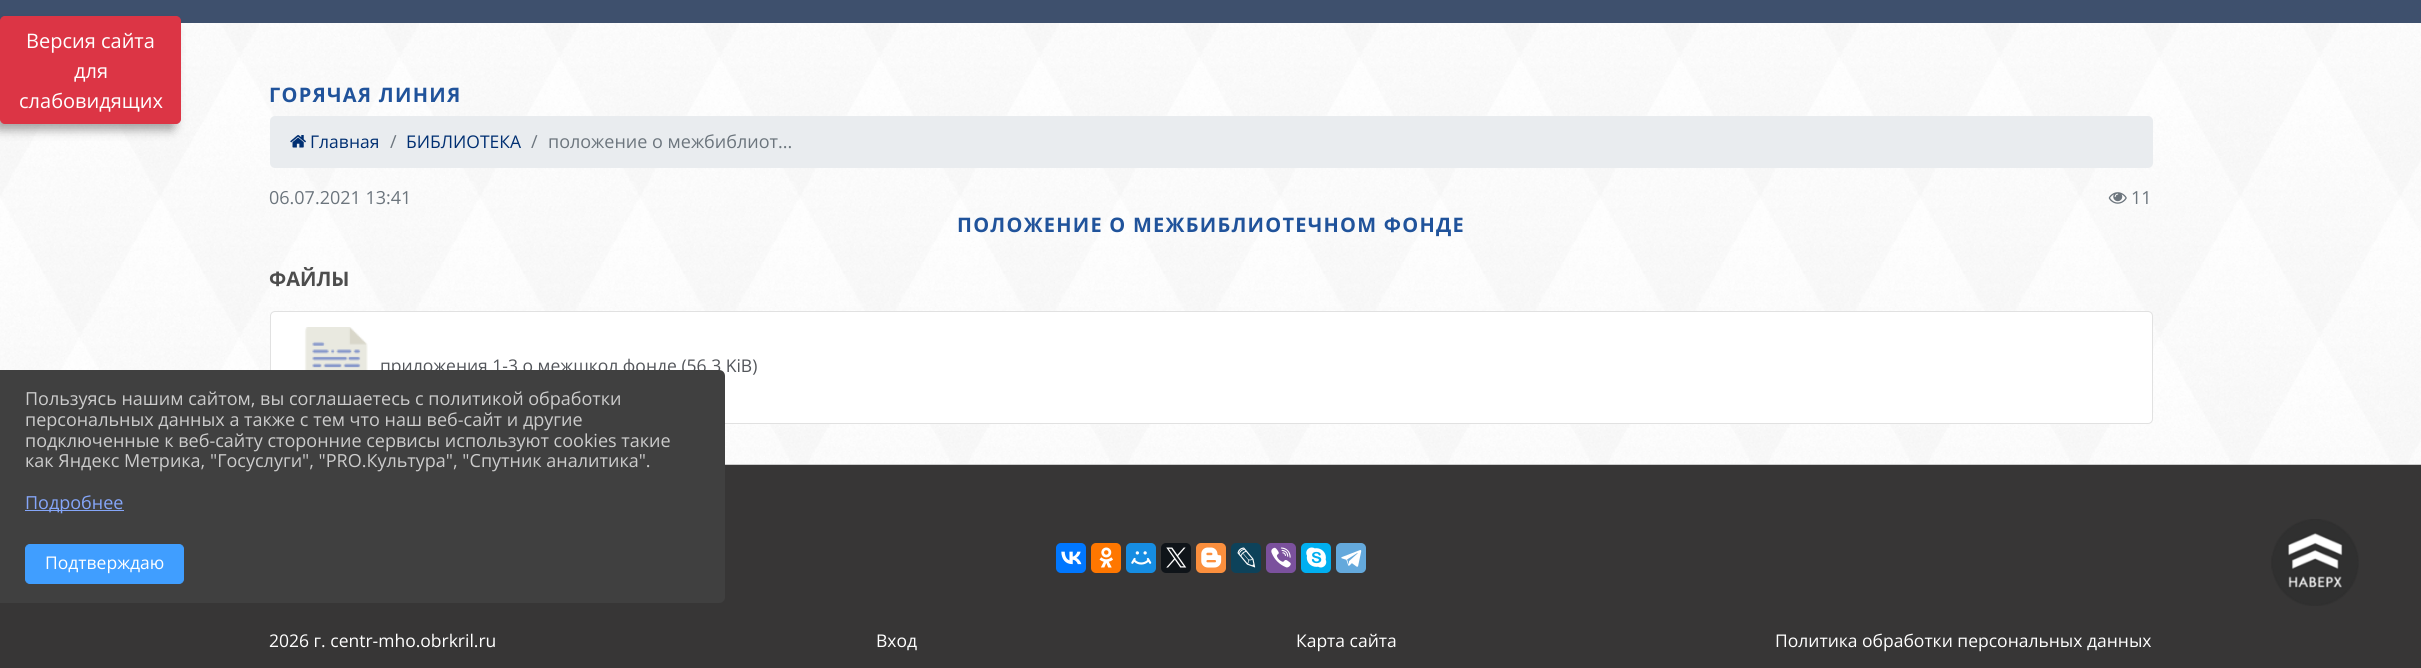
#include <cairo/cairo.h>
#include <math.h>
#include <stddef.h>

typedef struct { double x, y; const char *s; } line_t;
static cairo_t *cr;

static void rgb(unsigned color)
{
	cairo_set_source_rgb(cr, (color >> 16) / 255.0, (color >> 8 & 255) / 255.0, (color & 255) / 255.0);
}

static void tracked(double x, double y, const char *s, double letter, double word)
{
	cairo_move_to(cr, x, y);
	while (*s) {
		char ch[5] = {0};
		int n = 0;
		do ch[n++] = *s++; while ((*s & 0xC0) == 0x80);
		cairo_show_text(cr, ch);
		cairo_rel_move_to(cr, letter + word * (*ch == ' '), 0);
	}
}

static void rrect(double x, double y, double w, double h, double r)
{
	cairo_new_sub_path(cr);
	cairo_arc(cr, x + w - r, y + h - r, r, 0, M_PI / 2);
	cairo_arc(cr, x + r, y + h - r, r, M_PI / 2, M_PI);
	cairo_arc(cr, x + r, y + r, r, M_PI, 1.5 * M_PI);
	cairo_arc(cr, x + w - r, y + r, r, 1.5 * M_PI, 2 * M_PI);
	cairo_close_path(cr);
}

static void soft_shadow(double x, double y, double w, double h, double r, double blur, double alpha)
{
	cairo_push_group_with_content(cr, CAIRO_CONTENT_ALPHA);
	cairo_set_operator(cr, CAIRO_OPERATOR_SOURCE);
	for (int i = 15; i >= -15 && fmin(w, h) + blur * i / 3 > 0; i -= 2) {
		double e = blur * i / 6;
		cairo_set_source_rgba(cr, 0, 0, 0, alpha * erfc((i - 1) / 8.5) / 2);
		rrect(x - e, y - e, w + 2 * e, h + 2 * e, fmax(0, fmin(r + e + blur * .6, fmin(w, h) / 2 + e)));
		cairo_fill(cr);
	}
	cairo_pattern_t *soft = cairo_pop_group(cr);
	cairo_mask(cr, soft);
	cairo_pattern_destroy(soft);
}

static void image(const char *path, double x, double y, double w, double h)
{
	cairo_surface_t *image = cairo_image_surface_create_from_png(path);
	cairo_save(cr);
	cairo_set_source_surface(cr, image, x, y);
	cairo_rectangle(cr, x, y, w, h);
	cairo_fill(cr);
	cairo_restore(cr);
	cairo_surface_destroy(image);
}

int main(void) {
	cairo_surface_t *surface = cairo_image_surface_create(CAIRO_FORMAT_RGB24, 2421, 668);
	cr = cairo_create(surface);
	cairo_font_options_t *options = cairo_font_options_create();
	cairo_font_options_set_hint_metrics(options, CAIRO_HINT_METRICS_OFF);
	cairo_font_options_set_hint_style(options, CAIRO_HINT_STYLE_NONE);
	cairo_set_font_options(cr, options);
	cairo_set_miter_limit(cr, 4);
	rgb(0xffffff);
	cairo_paint(cr);
	image("img/1.png", 0, 23, 2421, 441);
	rgb(0x3e506d);
	cairo_rectangle(cr, 0, 0, 2421, 23);
	cairo_fill(cr);
	rgb(0x000000);
	soft_shadow(-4, 25, 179, 105, 4, 5, 0.35);
	rgb(0xdc3545);
	rrect(0.5, 16.5, 180, 107, 4.5);
	cairo_fill_preserve(cr);
	cairo_set_line_width(cr, 1);
	cairo_stroke(cr);
	rgb(0xe9ecef);
	rrect(270, 116, 1883, 52, 5);
	cairo_fill(cr);
	image("img/2.png", 290, 135, 16, 13);
	image("img/3.png", 2108, 192, 19, 12);
	rgb(0xffffff);
	rrect(270, 311, 1883, 113, 5);
	cairo_fill(cr);
	rrect(270.5, 311.5, 1882, 112, 4.5);
	cairo_set_source_rgba(cr, 0, 0, 0, 0.12);
	cairo_stroke(cr);
	image("img/4.png", 304, 327, 64, 43);
	rgb(0x373636);
	cairo_rectangle(cr, 0, 465, 2421, 203);
	cairo_fill(cr);
	rgb(0xcccccc);
	cairo_rectangle(cr, 725, 464, 1696, 1);
	cairo_fill(cr);
	rgb(0x0077ff);
	rrect(1056, 543, 30, 30, 5);
	cairo_fill(cr);
	image("img/5.png", 1061, 551, 21, 14);
	rgb(0xff7700);
	rrect(1091, 543, 30, 30, 5);
	cairo_fill(cr);
	image("img/6.png", 1099, 547, 14, 21);
	rgb(0x168de2);
	rrect(1126, 543, 30, 30, 5);
	cairo_fill(cr);
	image("img/7.png", 1131, 551, 21, 14);
	rgb(0x0f1419);
	rrect(1161, 543, 30, 30, 5);
	cairo_fill(cr);
	image("img/8.png", 1166, 547, 21, 21);
	rgb(0xfb8f3d);
	rrect(1196, 543, 30, 30, 5);
	cairo_fill(cr);
	image("img/9.png", 1201, 547, 21, 21);
	rgb(0x0d425a);
	rrect(1231, 543, 30, 30, 5);
	cairo_fill(cr);
	image("img/10.png", 1237, 547, 19, 21);
	rgb(0x7b519d);
	rrect(1266, 543, 30, 30, 5);
	cairo_fill(cr);
	image("img/11.png", 1271, 547, 20, 21);
	rgb(0x00aff0);
	rrect(1301, 543, 30, 30, 5);
	cairo_fill(cr);
	image("img/12.png", 1306, 547, 21, 21);
	rgb(0x64a9dc);
	rrect(1336, 543, 30, 30, 5);
	cairo_fill(cr);
	image("img/13.png", 1341, 550, 21, 17);
	image("img/14.png", 2271, 519, 88, 87);
	cairo_select_font_face(cr, "Open Sans", CAIRO_FONT_SLANT_NORMAL, CAIRO_FONT_WEIGHT_NORMAL);
	cairo_set_font_size(cr, 20);
	rgb(0xffffff);
	{
		static const line_t items[] = {
			{26, 48, "Версия сайта"},
			{74, 78, "для"},
			{19, 108, "слабовидящих"},
		};
		for (size_t i = 0; i < sizeof items / sizeof *items; i++) {
			cairo_move_to(cr, items[i].x, items[i].y);
			cairo_show_text(cr, items[i].s);
		}
	}
	cairo_select_font_face(cr, "Open Sans", CAIRO_FONT_SLANT_NORMAL, CAIRO_FONT_WEIGHT_BOLD);
	rgb(0x20539b);
	tracked(269, 102, "ГОРЯЧАЯ ЛИНИЯ", 1.25, 0);
	cairo_select_font_face(cr, "Open Sans", CAIRO_FONT_SLANT_NORMAL, CAIRO_FONT_WEIGHT_NORMAL);
	cairo_set_font_size(cr, 17.5);
	rgb(0x002f72);
	cairo_move_to(cr, 310, 148);
	cairo_show_text(cr, "Главная");
	cairo_set_font_size(cr, 18);
	rgb(0x6c757d);
	cairo_move_to(cr, 390, 148);
	cairo_show_text(cr, "/");
	cairo_set_font_size(cr, 17.5);
	rgb(0x002f72);
	cairo_move_to(cr, 406, 148);
	cairo_show_text(cr, "БИБЛИОТЕКА");
	cairo_set_font_size(cr, 18);
	rgb(0x6c757d);
	{
		static const line_t items[] = {
			{531, 148, "/"},
			{548, 148, "положение о межбиблиот..."},
			{269, 204, "06.07.2021 13:41"},
			{2131, 204, "11"},
		};
		for (size_t i = 0; i < sizeof items / sizeof *items; i++) {
			cairo_move_to(cr, items[i].x, items[i].y);
			cairo_show_text(cr, items[i].s);
		}
	}
	cairo_select_font_face(cr, "Open Sans", CAIRO_FONT_SLANT_NORMAL, CAIRO_FONT_WEIGHT_BOLD);
	cairo_set_font_size(cr, 20);
	rgb(0x20539b);
	tracked(957, 232, "ПОЛОЖЕНИЕ О МЕЖБИБЛИОТЕЧНОМ ФОНДЕ", 1.25, 0);
	rgb(0x4d4d4d);
	cairo_move_to(cr, 269, 286);
	cairo_show_text(cr, "ФАЙЛЫ");
	cairo_select_font_face(cr, "Open Sans", CAIRO_FONT_SLANT_NORMAL, CAIRO_FONT_WEIGHT_NORMAL);
	cairo_set_font_size(cr, 17.5);
	rgb(0x53565b);
	cairo_move_to(cr, 380, 372);
	cairo_show_text(cr, "приложения 1-3 о межшкол фонде (56.3 KiB)");
	rgb(0xffffff);
	{
		static const line_t items[] = {
			{269, 647, "2026 г. centr-mho.obrkril.ru"},
			{876, 647, "Вход"},
			{1296, 647, "Карта сайта"},
			{1775, 647, "Политика обработки персональных данных"},
		};
		for (size_t i = 0; i < sizeof items / sizeof *items; i++) {
			cairo_move_to(cr, items[i].x, items[i].y);
			cairo_show_text(cr, items[i].s);
		}
	}
	rgb(0x404040);
	cairo_new_path(cr);
	cairo_move_to(cr, 0, 370);
	cairo_line_to(cr, 719, 370);
	cairo_curve_to(cr, 722.5, 370, 725, 372.5, 725, 376);
	cairo_line_to(cr, 725, 597);
	cairo_curve_to(cr, 725, 600.5, 722.5, 603, 719, 603);
	cairo_line_to(cr, 0, 603);
	cairo_close_path(cr);
	cairo_fill(cr);
	cairo_set_font_size(cr, 18);
	rgb(0xcccccc);
	{
		static const line_t items[] = {
			{25, 405, "Пользуясь нашим сайтом, вы соглашаетесь с политикой обработки"},
			{25, 426, "персональных данных а также с тем что наш веб-сайт и другие"},
			{25, 447, "подключенные к веб-сайту сторонние сервисы используют cookies такие"},
			{25, 467, "как Яндекс Метрика, \"Госуслуги\", \"PRO.Культура\", \"Спутник аналитика\"."},
		};
		for (size_t i = 0; i < sizeof items / sizeof *items; i++) {
			cairo_move_to(cr, items[i].x, items[i].y);
			cairo_show_text(cr, items[i].s);
		}
	}
	rgb(0x85a6f9);
	cairo_rectangle(cr, 25, 510, 99, 1);
	cairo_fill(cr);
	cairo_move_to(cr, 25, 509);
	cairo_show_text(cr, "Подробнее");
	rgb(0x409eff);
	rrect(25.5, 544.5, 158, 39, 4.5);
	cairo_fill_preserve(cr);
	cairo_stroke(cr);
	cairo_set_font_size(cr, 17.5);
	rgb(0xffffff);
	cairo_move_to(cr, 45, 569);
	cairo_show_text(cr, "Подтверждаю");
	cairo_surface_write_to_png(surface, "page.png");
	cairo_font_options_destroy(options);
	cairo_destroy(cr);
	cairo_surface_destroy(surface);
	return 0;
}
